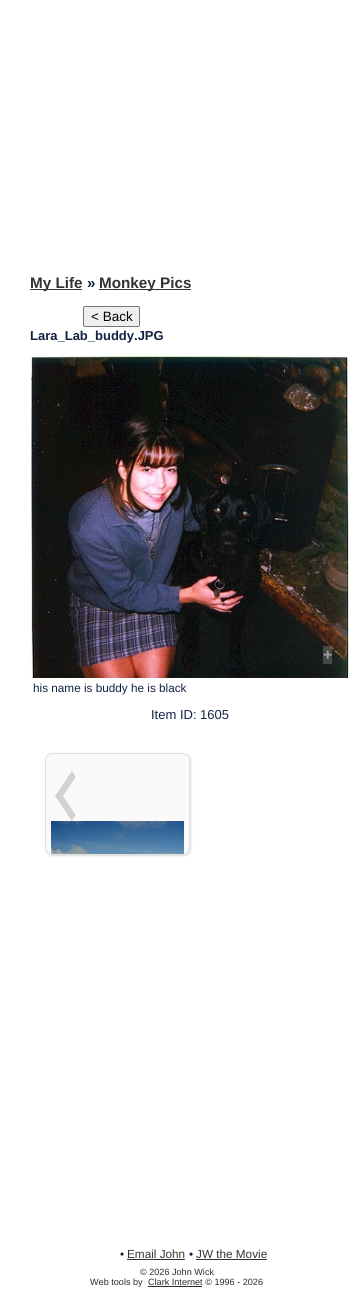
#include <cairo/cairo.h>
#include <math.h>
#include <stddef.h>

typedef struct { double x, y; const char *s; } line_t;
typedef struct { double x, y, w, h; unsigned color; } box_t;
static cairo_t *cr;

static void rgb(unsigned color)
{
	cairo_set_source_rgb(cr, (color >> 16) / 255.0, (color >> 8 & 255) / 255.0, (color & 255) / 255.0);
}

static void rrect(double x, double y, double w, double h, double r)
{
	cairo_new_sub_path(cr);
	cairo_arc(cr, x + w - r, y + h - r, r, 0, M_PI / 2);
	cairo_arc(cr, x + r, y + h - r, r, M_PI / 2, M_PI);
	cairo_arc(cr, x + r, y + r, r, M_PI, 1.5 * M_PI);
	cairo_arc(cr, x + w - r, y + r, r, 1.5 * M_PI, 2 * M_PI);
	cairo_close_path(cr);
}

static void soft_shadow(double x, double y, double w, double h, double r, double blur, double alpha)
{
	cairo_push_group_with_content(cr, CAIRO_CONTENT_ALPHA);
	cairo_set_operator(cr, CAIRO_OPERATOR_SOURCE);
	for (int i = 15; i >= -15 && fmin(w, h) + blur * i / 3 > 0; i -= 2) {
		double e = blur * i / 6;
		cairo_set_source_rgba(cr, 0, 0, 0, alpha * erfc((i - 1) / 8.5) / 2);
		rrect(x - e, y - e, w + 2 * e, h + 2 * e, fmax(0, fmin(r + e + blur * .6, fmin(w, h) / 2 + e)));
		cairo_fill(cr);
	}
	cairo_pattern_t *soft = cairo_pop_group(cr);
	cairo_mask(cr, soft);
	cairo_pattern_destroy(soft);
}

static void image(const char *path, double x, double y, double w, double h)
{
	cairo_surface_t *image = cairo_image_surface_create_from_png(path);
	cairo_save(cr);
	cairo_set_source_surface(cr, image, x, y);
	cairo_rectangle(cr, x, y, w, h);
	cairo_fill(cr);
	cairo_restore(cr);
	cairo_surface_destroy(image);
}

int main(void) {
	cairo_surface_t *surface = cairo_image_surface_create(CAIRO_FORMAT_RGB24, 353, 1290);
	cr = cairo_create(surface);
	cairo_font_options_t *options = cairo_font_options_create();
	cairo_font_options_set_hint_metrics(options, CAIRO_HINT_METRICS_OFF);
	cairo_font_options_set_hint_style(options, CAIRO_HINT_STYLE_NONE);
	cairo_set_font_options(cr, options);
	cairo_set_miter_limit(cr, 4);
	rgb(0xffffff);
	cairo_paint(cr);
	rgb(0x333333);
	cairo_rectangle(cr, 30, 289, 52, 1);
	cairo_fill(cr);
	cairo_rectangle(cr, 99, 289, 92, 1);
	cairo_fill(cr);
	rgb(0xefefef);
	rrect(83.5, 306.5, 56, 20, 1.5);
	cairo_fill_preserve(cr);
	rgb(0x767676);
	cairo_set_line_width(cr, 1);
	cairo_stroke(cr);
	image("img/1.png", 30, 356, 320, 322);
	cairo_set_source_rgba(cr, 0.784, 0.784, 0.784, 0.25);
	cairo_rectangle(cr, 323, 646, 9, 18);
	cairo_fill(cr);
	cairo_save(cr);
	cairo_set_fill_rule(cr, CAIRO_FILL_RULE_EVEN_ODD);
	cairo_new_path(cr);
	cairo_move_to(cr, 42, 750);
	cairo_line_to(cr, 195, 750);
	cairo_line_to(cr, 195, 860);
	cairo_line_to(cr, 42, 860);
	cairo_close_path(cr);
	cairo_move_to(cr, 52, 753);
	cairo_line_to(cr, 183, 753);
	cairo_curve_to(cr, 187, 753, 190, 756, 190, 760);
	cairo_line_to(cr, 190, 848);
	cairo_curve_to(cr, 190, 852, 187, 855, 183, 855);
	cairo_line_to(cr, 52, 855);
	cairo_curve_to(cr, 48, 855, 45, 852, 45, 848);
	cairo_line_to(cr, 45, 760);
	cairo_curve_to(cr, 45, 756, 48, 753, 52, 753);
	cairo_close_path(cr);
	cairo_clip(cr);
	rgb(0xc8c8c8);
	soft_shadow(46, 754, 145, 102, 7, 1, 0.7);
	cairo_restore(cr);
	cairo_set_source_rgba(cr, 0.784, 0.784, 0.784, 0.1);
	rrect(45, 753, 145, 102, 7);
	cairo_fill(cr);
	rrect(45.5, 753.5, 144, 101, 6.5);
	cairo_set_source_rgba(cr, 0.784, 0.784, 0.784, 0.5);
	cairo_stroke(cr);
	image("img/2.png", 55, 771, 21, 50);
	image("img/3.png", 51, 821, 133, 33);
	{
		static const box_t items[] = {
			{127, 1259, 58, 1, 0x333333},
			{196, 1259, 71, 1, 0x333333},
			{148, 1286, 54, 1, 0x2b2b2b},
		};
		for (size_t i = 0; i < sizeof items / sizeof *items; i++) {
			rgb(items[i].color);
			cairo_rectangle(cr, items[i].x, items[i].y, items[i].w, items[i].h);
			cairo_fill(cr);
		}
	}
	cairo_select_font_face(cr, "Liberation Sans", CAIRO_FONT_SLANT_NORMAL, CAIRO_FONT_WEIGHT_BOLD);
	cairo_set_font_size(cr, 15.25);
	rgb(0x333333);
	cairo_move_to(cr, 30, 288);
	cairo_show_text(cr, "My Life");
	rgb(0x112244);
	cairo_move_to(cr, 87, 288);
	cairo_show_text(cr, "»");
	rgb(0x333333);
	cairo_move_to(cr, 99, 288);
	cairo_show_text(cr, "Monkey Pics");
	cairo_select_font_face(cr, "Liberation Sans", CAIRO_FONT_SLANT_NORMAL, CAIRO_FONT_WEIGHT_NORMAL);
	cairo_set_font_size(cr, 13.5);
	rgb(0x000000);
	cairo_move_to(cr, 91, 321);
	cairo_show_text(cr, "< Back");
	cairo_select_font_face(cr, "Liberation Sans", CAIRO_FONT_SLANT_NORMAL, CAIRO_FONT_WEIGHT_BOLD);
	cairo_set_font_size(cr, 13);
	rgb(0x112244);
	cairo_move_to(cr, 30, 340);
	cairo_show_text(cr, "Lara_Lab_buddy.JPG");
	cairo_set_font_size(cr, 16);
	rgb(0xa1a3a3);
	cairo_move_to(cr, 323, 660);
	cairo_show_text(cr, "+");
	cairo_select_font_face(cr, "Liberation Sans", CAIRO_FONT_SLANT_NORMAL, CAIRO_FONT_WEIGHT_NORMAL);
	cairo_set_font_size(cr, 11.75);
	rgb(0x112244);
	cairo_move_to(cr, 33, 692);
	cairo_show_text(cr, "his name is buddy he is black");
	cairo_set_font_size(cr, 13);
	cairo_move_to(cr, 151, 719);
	cairo_show_text(cr, "Item ID: 1605");
	cairo_set_font_size(cr, 11.75);
	cairo_move_to(cr, 120, 1258);
	cairo_show_text(cr, "•");
	rgb(0x333333);
	cairo_move_to(cr, 127, 1258);
	cairo_show_text(cr, "Email John");
	rgb(0x112244);
	cairo_move_to(cr, 189, 1258);
	cairo_show_text(cr, "•");
	rgb(0x333333);
	cairo_move_to(cr, 196, 1258);
	cairo_show_text(cr, "JW the Movie");
	cairo_set_font_size(cr, 9.1);
	rgb(0x2b2b2b);
	{
		static const line_t items[] = {
			{140, 1275, "© 2026 John Wick"},
			{90, 1285, "Web tools by"},
			{148, 1285, "Clark Internet © 1996 - 2026"},
		};
		for (size_t i = 0; i < sizeof items / sizeof *items; i++) {
			cairo_move_to(cr, items[i].x, items[i].y);
			cairo_show_text(cr, items[i].s);
		}
	}
	cairo_surface_write_to_png(surface, "page.png");
	cairo_font_options_destroy(options);
	cairo_destroy(cr);
	cairo_surface_destroy(surface);
	return 0;
}
